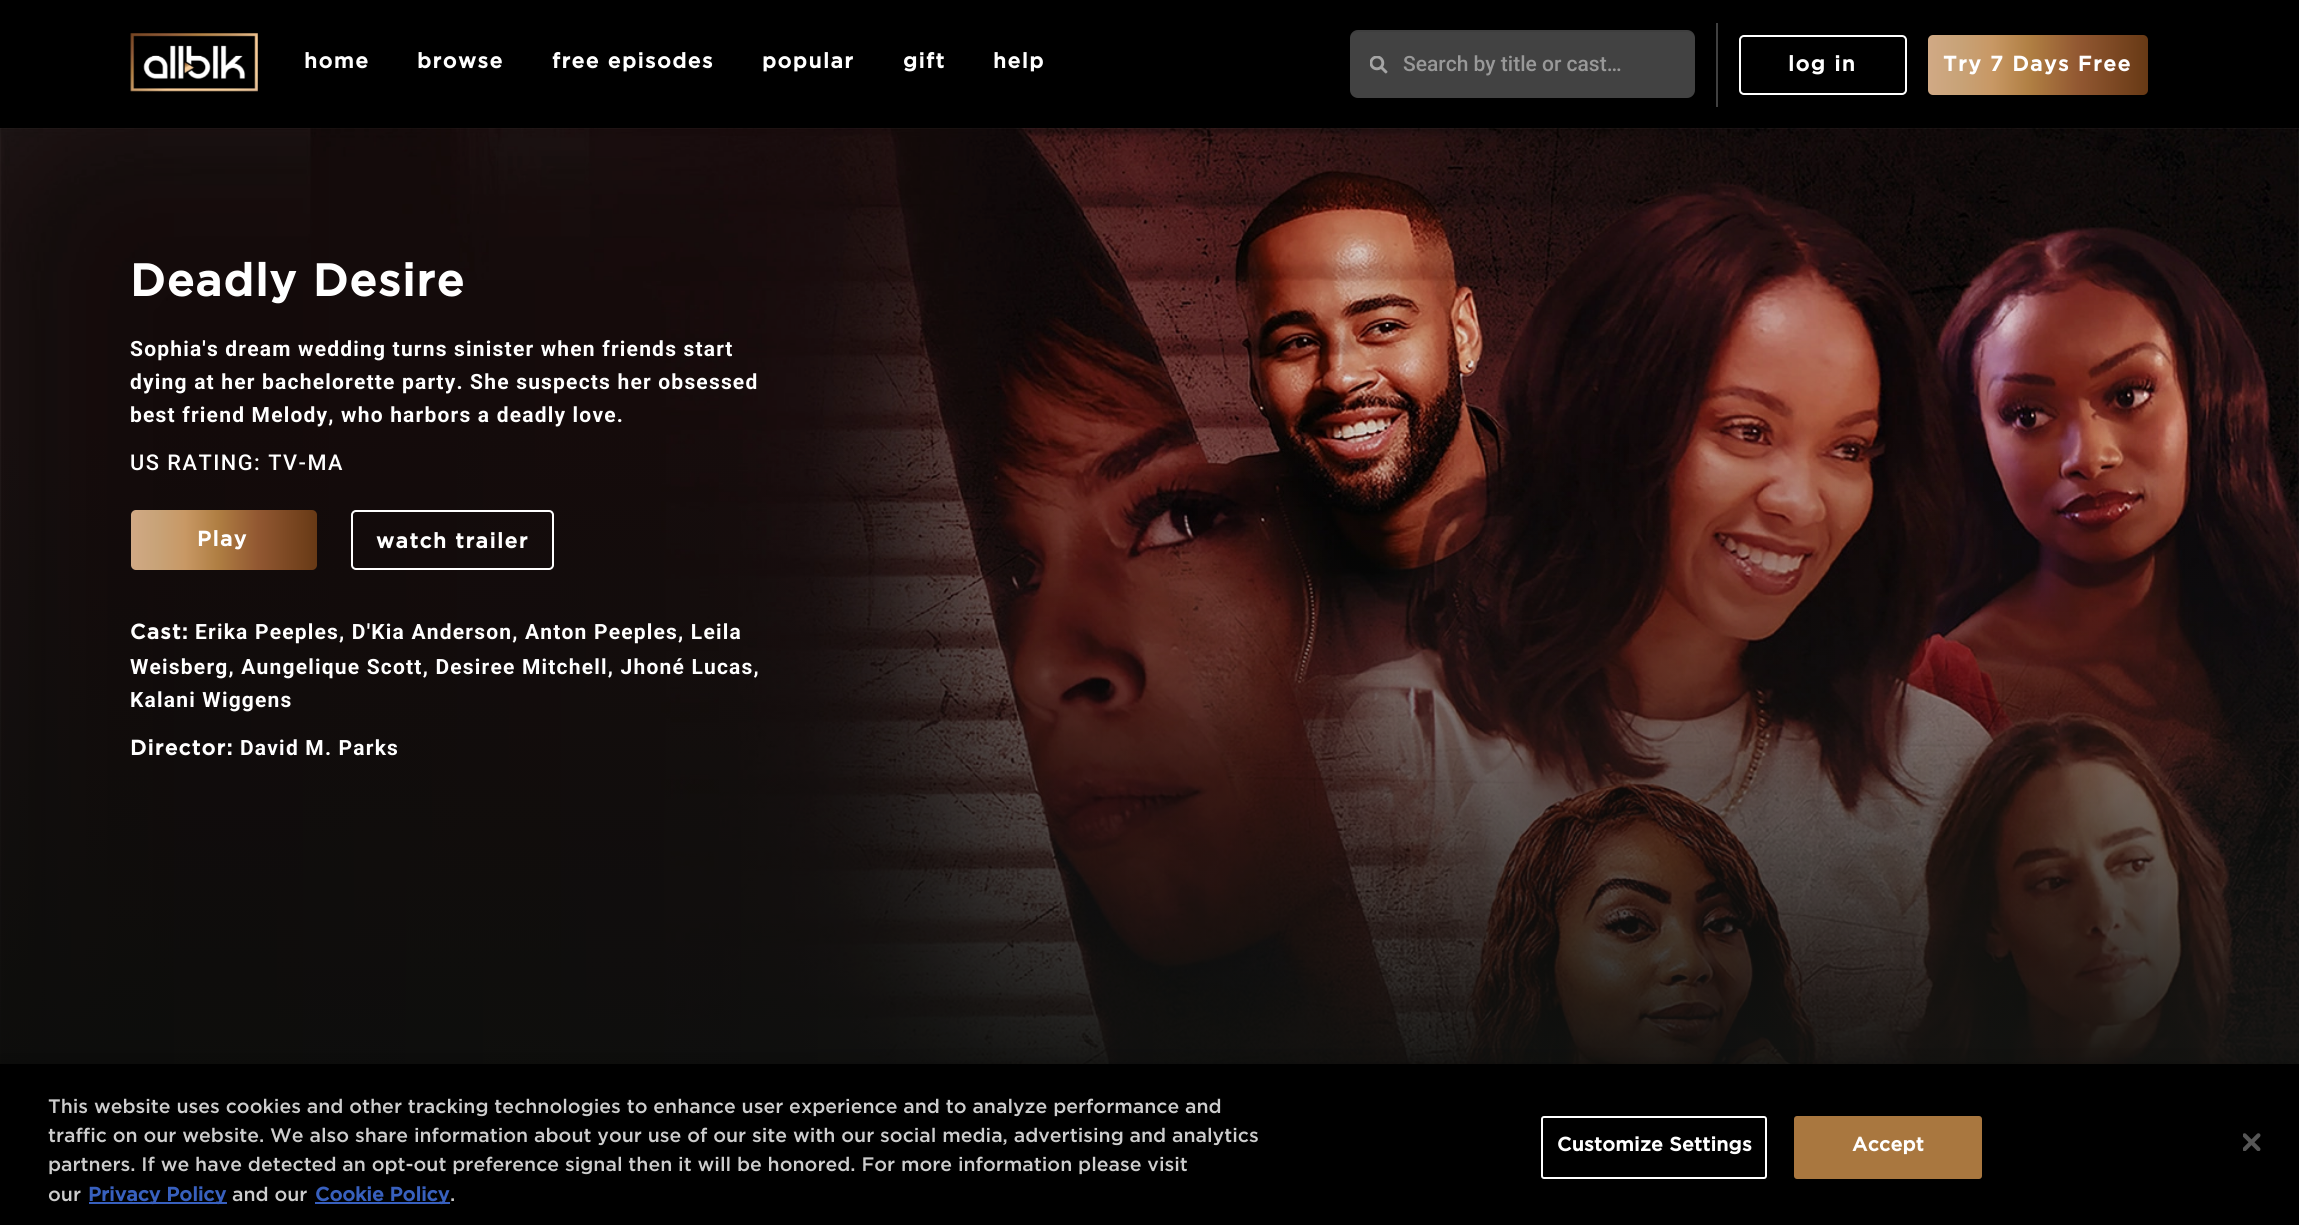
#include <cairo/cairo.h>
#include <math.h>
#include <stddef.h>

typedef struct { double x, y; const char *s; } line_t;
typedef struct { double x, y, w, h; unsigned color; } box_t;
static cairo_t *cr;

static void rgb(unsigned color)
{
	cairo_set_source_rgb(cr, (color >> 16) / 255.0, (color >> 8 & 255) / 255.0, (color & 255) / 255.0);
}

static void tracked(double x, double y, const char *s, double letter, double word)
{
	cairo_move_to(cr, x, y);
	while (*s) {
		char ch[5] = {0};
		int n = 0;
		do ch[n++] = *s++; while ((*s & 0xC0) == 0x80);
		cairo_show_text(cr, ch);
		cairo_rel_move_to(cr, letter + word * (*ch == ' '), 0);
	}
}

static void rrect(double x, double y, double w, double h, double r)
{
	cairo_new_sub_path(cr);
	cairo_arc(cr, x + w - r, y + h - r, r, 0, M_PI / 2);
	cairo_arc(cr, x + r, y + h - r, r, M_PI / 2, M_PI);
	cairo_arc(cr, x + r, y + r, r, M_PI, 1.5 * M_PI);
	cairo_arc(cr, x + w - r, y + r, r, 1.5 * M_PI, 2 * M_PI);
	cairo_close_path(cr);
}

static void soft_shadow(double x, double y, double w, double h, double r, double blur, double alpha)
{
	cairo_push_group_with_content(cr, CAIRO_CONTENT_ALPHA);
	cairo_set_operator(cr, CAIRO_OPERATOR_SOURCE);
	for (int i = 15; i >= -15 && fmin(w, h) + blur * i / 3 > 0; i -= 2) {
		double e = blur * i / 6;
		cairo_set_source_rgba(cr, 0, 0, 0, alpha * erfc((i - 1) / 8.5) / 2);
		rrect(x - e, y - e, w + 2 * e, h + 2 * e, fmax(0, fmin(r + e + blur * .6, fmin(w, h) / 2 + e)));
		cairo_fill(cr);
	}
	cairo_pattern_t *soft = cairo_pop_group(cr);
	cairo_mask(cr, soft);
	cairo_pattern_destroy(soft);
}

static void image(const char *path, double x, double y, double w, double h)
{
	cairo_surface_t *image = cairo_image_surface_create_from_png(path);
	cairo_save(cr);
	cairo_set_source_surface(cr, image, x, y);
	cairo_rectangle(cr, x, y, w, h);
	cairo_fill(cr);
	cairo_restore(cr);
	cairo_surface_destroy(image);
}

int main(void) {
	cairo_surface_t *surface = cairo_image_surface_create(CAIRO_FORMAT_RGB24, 2299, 1225);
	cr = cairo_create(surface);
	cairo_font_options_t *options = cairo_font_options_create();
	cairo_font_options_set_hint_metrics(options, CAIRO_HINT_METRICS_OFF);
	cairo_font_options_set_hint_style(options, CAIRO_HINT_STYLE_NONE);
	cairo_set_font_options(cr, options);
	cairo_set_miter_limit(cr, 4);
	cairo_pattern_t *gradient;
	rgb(0xffffff);
	cairo_paint(cr);
	rgb(0x000000);
	cairo_rectangle(cr, 0, 0, 2299, 128);
	cairo_fill(cr);
	image("img/1.png", 130, 33, 128, 59);
	rgb(0x424242);
	rrect(1350, 30, 345, 68, 8);
	cairo_fill(cr);
	image("img/2.png", 1370, 56, 18, 18);
	cairo_set_source_rgba(cr, 0, 0, 0, 0.07);
	cairo_new_path(cr);
	cairo_move_to(cr, 1358, 32);
	cairo_line_to(cr, 1688, 32);
	cairo_curve_to(cr, 1692, 32, 1695, 35, 1695, 39);
	cairo_line_to(cr, 1695, 38);
	cairo_curve_to(cr, 1695, 34, 1691, 30, 1687, 30);
	cairo_line_to(cr, 1358, 30);
	cairo_curve_to(cr, 1354, 30, 1350, 34, 1350, 38);
	cairo_line_to(cr, 1350, 39);
	cairo_curve_to(cr, 1350, 35, 1353, 32, 1358, 32);
	cairo_close_path(cr);
	cairo_fill(cr);
	rgb(0x404040);
	cairo_rectangle(cr, 1716, 23, 2, 84);
	cairo_fill(cr);
	rrect(1740, 36, 166, 58, 4);
	rgb(0xffffff);
	cairo_stroke(cr);
	gradient = cairo_pattern_create_linear(1928, 63, 2148, 63);
	cairo_pattern_add_color_stop_rgba(gradient, 0, 0.82, 0.663, 0.522, 1);
	cairo_pattern_add_color_stop_rgba(gradient, 0.14, 0.784, 0.639, 0.471, 1);
	cairo_pattern_add_color_stop_rgba(gradient, 0.29, 0.784, 0.596, 0.396, 1);
	cairo_pattern_add_color_stop_rgba(gradient, 0.47, 0.686, 0.494, 0.259, 1);
	cairo_pattern_add_color_stop_rgba(gradient, 0.68, 0.573, 0.345, 0.196, 1);
	cairo_pattern_add_color_stop_rgba(gradient, 1, 0.404, 0.224, 0.082, 1);
	cairo_set_source(cr, gradient);
	cairo_pattern_destroy(gradient);
	rrect(1928, 35, 220, 60, 5);
	cairo_fill(cr);
	image("img/3.png", 0, 128, 2299, 936);
	gradient = cairo_pattern_create_linear(0, 613, 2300, 613);
	cairo_pattern_add_color_stop_rgba(gradient, 0, 0, 0, 0, 0.35);
	cairo_pattern_add_color_stop_rgba(gradient, 1, 0, 0, 0, 0);
	cairo_set_source(cr, gradient);
	cairo_pattern_destroy(gradient);
	cairo_rectangle(cr, 0, 128, 2158, 936);
	cairo_fill(cr);
	gradient = cairo_pattern_create_linear(131, 540, 317, 540);
	cairo_pattern_add_color_stop_rgba(gradient, 0, 0.82, 0.663, 0.522, 1);
	cairo_pattern_add_color_stop_rgba(gradient, 0.14, 0.784, 0.639, 0.471, 1);
	cairo_pattern_add_color_stop_rgba(gradient, 0.29, 0.784, 0.596, 0.396, 1);
	cairo_pattern_add_color_stop_rgba(gradient, 0.47, 0.686, 0.494, 0.259, 1);
	cairo_pattern_add_color_stop_rgba(gradient, 0.68, 0.573, 0.345, 0.196, 1);
	cairo_pattern_add_color_stop_rgba(gradient, 1, 0.404, 0.224, 0.082, 1);
	cairo_set_source(cr, gradient);
	cairo_pattern_destroy(gradient);
	rrect(131, 510, 186, 60, 5);
	cairo_fill(cr);
	rrect(352, 511, 201, 58, 4);
	rgb(0xffffff);
	cairo_stroke(cr);
	rgb(0x000000);
	soft_shadow(0, 1064, 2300, 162, 0, 13.5, 0.2);
	{
		static const box_t items[] = {
			{0, 1064, 2299, 161, 0x000000},
			{89, 1202, 138, 2, 0x3860be},
			{315, 1202, 135, 2, 0x3860be},
		};
		for (size_t i = 0; i < sizeof items / sizeof *items; i++) {
			rgb(items[i].color);
			cairo_rectangle(cr, items[i].x, items[i].y, items[i].w, items[i].h);
			cairo_fill(cr);
		}
	}
	rrect(1542, 1117, 224, 61, 2);
	rgb(0xffffff);
	cairo_stroke(cr);
	rgb(0xa9773f);
	rrect(1795, 1117, 186, 61, 2);
	cairo_fill_preserve(cr);
	cairo_stroke(cr);
	image("img/4.png", 2243, 1133, 18, 18);
	cairo_select_font_face(cr, "Gotham", CAIRO_FONT_SLANT_NORMAL, CAIRO_FONT_WEIGHT_BOLD);
	cairo_set_font_size(cr, 21);
	rgb(0xffffff);
	{
		static const line_t items[] = {
			{304, 68, "home"},
			{417, 68, "browse"},
			{552, 68, "free episodes"},
			{762, 68, "popular"},
			{903, 68, "gift"},
			{993, 68, "help"},
		};
		for (size_t i = 0; i < sizeof items / sizeof *items; i++) {
			tracked(items[i].x, items[i].y, items[i].s, 1.5, 0);
		}
	}
	cairo_select_font_face(cr, "Roboto Medium", CAIRO_FONT_SLANT_NORMAL, CAIRO_FONT_WEIGHT_NORMAL);
	rgb(0x999999);
	cairo_move_to(cr, 1403, 71);
	cairo_show_text(cr, "Search by title or cast…");
	cairo_select_font_face(cr, "Gotham", CAIRO_FONT_SLANT_NORMAL, CAIRO_FONT_WEIGHT_BOLD);
	rgb(0xffffff);
	tracked(1788, 71, "log in", 1.5, 0);
	tracked(1943, 71, "Try 7 Days Free", 1.5, 0);
	cairo_set_font_size(cr, 45);
	tracked(130, 296, "Deadly Desire", 1.5, 0);
	cairo_select_font_face(cr, "Roboto", CAIRO_FONT_SLANT_NORMAL, CAIRO_FONT_WEIGHT_BOLD);
	cairo_set_font_size(cr, 21);
	{
		static const line_t items[] = {
			{130, 356, "Sophia's dream wedding turns sinister when friends start"},
			{130, 389, "dying at her bachelorette party. She suspects her obsessed"},
			{130, 422, "best friend Melody, who harbors a deadly love."},
		};
		for (size_t i = 0; i < sizeof items / sizeof *items; i++) {
			tracked(items[i].x, items[i].y, items[i].s, 1.2, 0);
		}
	}
	cairo_select_font_face(cr, "Roboto Medium", CAIRO_FONT_SLANT_NORMAL, CAIRO_FONT_WEIGHT_NORMAL);
	cairo_set_font_size(cr, 21.75);
	tracked(130, 470, "US RATING: TV-MA", 1.5, 0);
	cairo_select_font_face(cr, "Gotham", CAIRO_FONT_SLANT_NORMAL, CAIRO_FONT_WEIGHT_BOLD);
	cairo_set_font_size(cr, 21);
	tracked(197, 546, "Play", 1.5, 0);
	tracked(376, 548, "watch trailer", 1.5, 0);
	tracked(130, 639, "Cast:", 1.2, 0);
	cairo_select_font_face(cr, "Roboto", CAIRO_FONT_SLANT_NORMAL, CAIRO_FONT_WEIGHT_BOLD);
	{
		static const line_t items[] = {
			{195, 639, "Erika Peeples, D'Kia Anderson, Anton Peeples, Leila"},
			{130, 674, "Weisberg, Aungelique Scott, Desiree Mitchell, Jhoné Lucas,"},
			{130, 707, "Kalani Wiggens"},
		};
		for (size_t i = 0; i < sizeof items / sizeof *items; i++) {
			tracked(items[i].x, items[i].y, items[i].s, 1.2, 0);
		}
	}
	cairo_select_font_face(cr, "Gotham", CAIRO_FONT_SLANT_NORMAL, CAIRO_FONT_WEIGHT_BOLD);
	tracked(130, 755, "Director:", 1.2, 0);
	cairo_select_font_face(cr, "Roboto", CAIRO_FONT_SLANT_NORMAL, CAIRO_FONT_WEIGHT_BOLD);
	tracked(240, 755, "David M. Parks", 1.2, 0);
	cairo_select_font_face(cr, "Gotham Medium", CAIRO_FONT_SLANT_NORMAL, CAIRO_FONT_WEIGHT_NORMAL);
	cairo_set_font_size(cr, 19.5);
	rgb(0xcdcdcd);
	{
		static const line_t items[] = {
			{48, 1113, "This website uses cookies and other tracking technologies to enhance user experience and to analyze performance and"},
			{48, 1142, "traffic on our website. We also share information about your use of our site with our social media, advertising and analytics"},
			{48, 1171, "partners. If we have detected an opt-out preference signal then it will be honored. For more information please visit"},
			{48, 1201, "our"},
		};
		for (size_t i = 0; i < sizeof items / sizeof *items; i++) {
			cairo_move_to(cr, items[i].x, items[i].y);
			cairo_show_text(cr, items[i].s);
		}
	}
	cairo_select_font_face(cr, "Gotham", CAIRO_FONT_SLANT_NORMAL, CAIRO_FONT_WEIGHT_BOLD);
	rgb(0x3860be);
	cairo_move_to(cr, 88, 1201);
	cairo_show_text(cr, "Privacy Policy");
	cairo_select_font_face(cr, "Gotham Medium", CAIRO_FONT_SLANT_NORMAL, CAIRO_FONT_WEIGHT_NORMAL);
	rgb(0xcdcdcd);
	cairo_move_to(cr, 232, 1201);
	cairo_show_text(cr, "and our");
	cairo_select_font_face(cr, "Gotham", CAIRO_FONT_SLANT_NORMAL, CAIRO_FONT_WEIGHT_BOLD);
	rgb(0x3860be);
	cairo_move_to(cr, 315, 1201);
	cairo_show_text(cr, "Cookie Policy");
	cairo_select_font_face(cr, "Gotham Medium", CAIRO_FONT_SLANT_NORMAL, CAIRO_FONT_WEIGHT_NORMAL);
	rgb(0xcdcdcd);
	cairo_move_to(cr, 450, 1201);
	cairo_show_text(cr, ".");
	cairo_select_font_face(cr, "Gotham", CAIRO_FONT_SLANT_NORMAL, CAIRO_FONT_WEIGHT_BOLD);
	rgb(0xffffff);
	tracked(1557, 1151, "Customize Settings", 0.25, 0);
	tracked(1852, 1151, "Accept", 0.25, 0);
	cairo_surface_write_to_png(surface, "page.png");
	cairo_font_options_destroy(options);
	cairo_destroy(cr);
	cairo_surface_destroy(surface);
	return 0;
}
